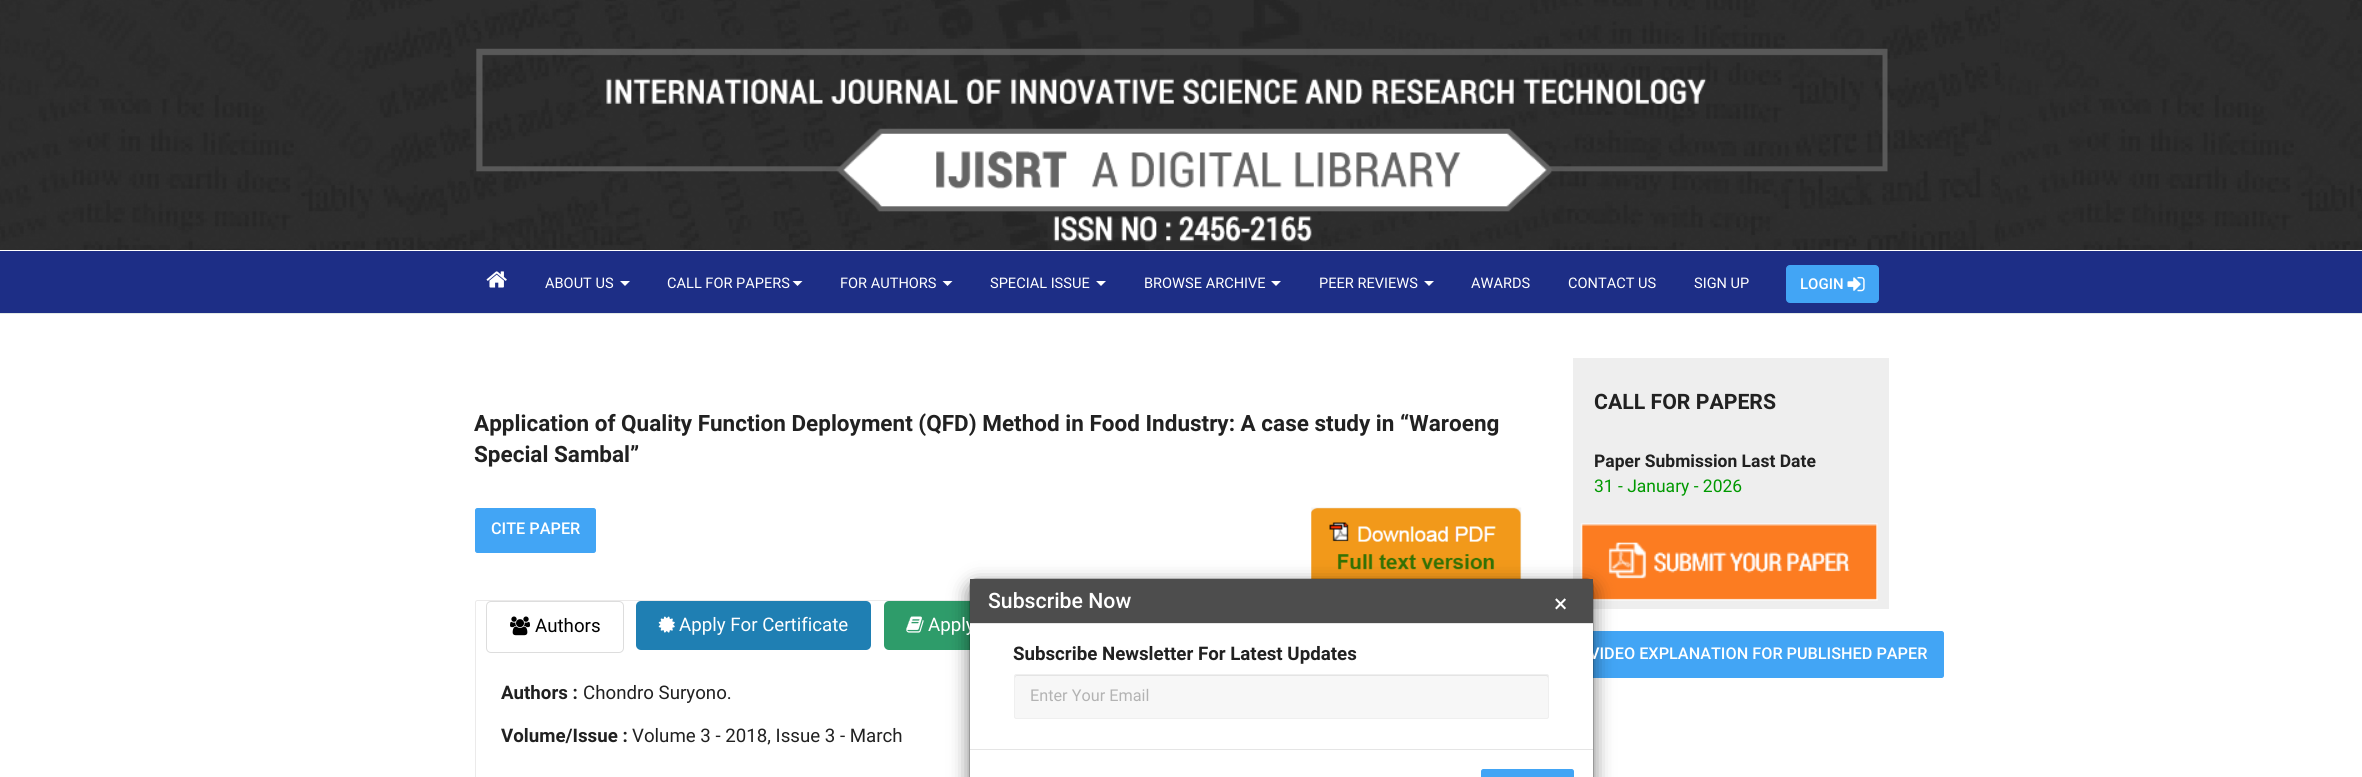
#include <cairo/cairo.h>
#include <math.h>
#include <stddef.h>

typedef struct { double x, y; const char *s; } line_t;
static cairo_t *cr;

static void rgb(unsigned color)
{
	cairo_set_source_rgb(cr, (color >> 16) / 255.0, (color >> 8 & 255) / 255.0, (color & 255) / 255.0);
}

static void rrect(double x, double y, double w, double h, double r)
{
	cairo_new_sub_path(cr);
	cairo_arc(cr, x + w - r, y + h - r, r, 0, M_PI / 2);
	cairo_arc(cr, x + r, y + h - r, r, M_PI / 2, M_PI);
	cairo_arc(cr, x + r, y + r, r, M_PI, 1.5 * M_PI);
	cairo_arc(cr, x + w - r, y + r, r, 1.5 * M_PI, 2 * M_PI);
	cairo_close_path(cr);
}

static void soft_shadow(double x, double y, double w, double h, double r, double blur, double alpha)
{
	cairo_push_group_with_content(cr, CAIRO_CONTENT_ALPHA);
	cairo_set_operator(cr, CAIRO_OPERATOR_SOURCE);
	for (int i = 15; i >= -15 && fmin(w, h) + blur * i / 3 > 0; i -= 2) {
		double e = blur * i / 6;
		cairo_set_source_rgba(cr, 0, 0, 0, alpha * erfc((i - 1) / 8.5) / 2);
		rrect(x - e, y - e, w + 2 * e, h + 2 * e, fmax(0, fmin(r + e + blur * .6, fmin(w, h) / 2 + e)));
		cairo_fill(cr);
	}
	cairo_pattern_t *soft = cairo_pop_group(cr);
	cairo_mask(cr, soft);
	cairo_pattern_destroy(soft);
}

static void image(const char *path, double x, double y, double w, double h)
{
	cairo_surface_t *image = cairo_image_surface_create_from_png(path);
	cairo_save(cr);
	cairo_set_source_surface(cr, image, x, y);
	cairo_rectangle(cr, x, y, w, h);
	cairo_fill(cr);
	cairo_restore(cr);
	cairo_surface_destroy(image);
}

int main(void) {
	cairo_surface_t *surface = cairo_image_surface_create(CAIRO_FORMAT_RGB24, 2362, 777);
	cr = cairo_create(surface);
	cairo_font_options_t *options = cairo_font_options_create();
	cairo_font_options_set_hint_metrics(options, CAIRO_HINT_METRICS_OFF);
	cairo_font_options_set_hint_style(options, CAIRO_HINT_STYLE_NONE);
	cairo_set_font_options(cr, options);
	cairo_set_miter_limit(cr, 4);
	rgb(0xffffff);
	cairo_paint(cr);
	image("img/1.png", 0, 0, 2362, 250);
	image("img/2.png", 476, 48, 1412, 194);
	rgb(0x1d2e86);
	cairo_rectangle(cr, 0, 251, 2362, 62);
	cairo_fill(cr);
	rgb(0xe2e9e6);
	cairo_rectangle(cr, 0, 313, 2362, 1);
	cairo_fill(cr);
	image("img/3.png", 486, 271, 21, 17);
	rgb(0xffffff);
	cairo_new_path(cr);
	cairo_move_to(cr, 620, 281);
	cairo_line_to(cr, 630, 281);
	cairo_line_to(cr, 625, 286);
	cairo_close_path(cr);
	cairo_fill(cr);
	cairo_new_path(cr);
	cairo_move_to(cr, 792.5, 281);
	cairo_line_to(cr, 802.5, 281);
	cairo_line_to(cr, 797.5, 286);
	cairo_close_path(cr);
	cairo_fill(cr);
	cairo_new_path(cr);
	cairo_move_to(cr, 942.5, 281);
	cairo_line_to(cr, 952.5, 281);
	cairo_line_to(cr, 947.5, 286);
	cairo_close_path(cr);
	cairo_fill(cr);
	cairo_new_path(cr);
	cairo_move_to(cr, 1096, 281);
	cairo_line_to(cr, 1106, 281);
	cairo_line_to(cr, 1101, 286);
	cairo_close_path(cr);
	cairo_fill(cr);
	cairo_new_path(cr);
	cairo_move_to(cr, 1271, 281);
	cairo_line_to(cr, 1281, 281);
	cairo_line_to(cr, 1276, 286);
	cairo_close_path(cr);
	cairo_fill(cr);
	cairo_new_path(cr);
	cairo_move_to(cr, 1424, 281);
	cairo_line_to(cr, 1434, 281);
	cairo_line_to(cr, 1429, 286);
	cairo_close_path(cr);
	cairo_fill(cr);
	rgb(0x42a5f5);
	rrect(1786.5, 265.5, 92, 37, 3.5);
	cairo_fill_preserve(cr);
	cairo_set_line_width(cr, 1);
	cairo_stroke(cr);
	image("img/4.png", 1847, 276, 18, 16);
	rrect(475.5, 508.5, 120, 44, 2);
	cairo_fill_preserve(cr);
	cairo_stroke(cr);
	image("img/5.png", 1311, 507, 211, 72);
	rrect(475.5, 600.5, 1045, 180, 2);
	rgb(0xebeaea);
	cairo_stroke(cr);
	rrect(486.5, 601.5, 137, 51, 4.5);
	rgb(0xdddddd);
	cairo_stroke(cr);
	image("img/6.png", 510, 616, 20, 20);
	rgb(0x1f7fb3);
	rrect(636, 601, 235, 49, 5);
	cairo_fill(cr);
	image("img/7.png", 658, 616, 17, 17);
	rgb(0x2e9c6a);
	rrect(884, 601, 315, 49, 5);
	cairo_fill(cr);
	image("img/8.png", 906, 616, 18, 17);
	rgb(0xeeeeee);
	cairo_rectangle(cr, 1573, 358, 316, 251);
	cairo_fill(cr);
	image("img/9.png", 1580, 523, 298, 78);
	rgb(0x42a5f5);
	rrect(1573.5, 631.5, 370, 46, 2);
	cairo_fill_preserve(cr);
	cairo_stroke(cr);
	rgb(0x000000);
	soft_shadow(969, 584, 625, 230, 8, 9.5, 0.5);
	rgb(0xffffff);
	cairo_rectangle(cr, 970, 624, 623, 153);
	cairo_fill(cr);
	cairo_select_font_face(cr, "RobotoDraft", CAIRO_FONT_SLANT_NORMAL, CAIRO_FONT_WEIGHT_NORMAL);
	cairo_set_font_size(cr, 14.6);
	{
		static const line_t items[] = {
			{545, 288, "ABOUT US"},
			{667, 288, "CALL FOR PAPERS"},
			{840, 288, "FOR AUTHORS"},
			{990, 288, "SPECIAL ISSUE"},
			{1144, 288, "BROWSE ARCHIVE"},
			{1319, 288, "PEER REVIEWS"},
			{1471, 288, "AWARDS"},
			{1568, 288, "CONTACT US"},
			{1694, 288, "SIGN UP"},
		};
		for (size_t i = 0; i < sizeof items / sizeof *items; i++) {
			cairo_move_to(cr, items[i].x, items[i].y);
			cairo_show_text(cr, items[i].s);
		}
	}
	cairo_select_font_face(cr, "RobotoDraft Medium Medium", CAIRO_FONT_SLANT_NORMAL, CAIRO_FONT_WEIGHT_NORMAL);
	cairo_set_font_size(cr, 15);
	cairo_move_to(cr, 1800, 289);
	cairo_show_text(cr, "LOGIN");
	cairo_select_font_face(cr, "RobotoDraft", CAIRO_FONT_SLANT_NORMAL, CAIRO_FONT_WEIGHT_BOLD);
	cairo_set_font_size(cr, 22.5);
	rgb(0x212121);
	cairo_move_to(cr, 474, 431);
	cairo_show_text(cr, "Application of Quality Function Deployment (QFD) Method in Food Industry: A case study in “Waroeng");
	cairo_move_to(cr, 474, 462);
	cairo_show_text(cr, "Special Sambal”");
	cairo_select_font_face(cr, "RobotoDraft Medium Medium", CAIRO_FONT_SLANT_NORMAL, CAIRO_FONT_WEIGHT_NORMAL);
	cairo_set_font_size(cr, 16.25);
	rgb(0xffffff);
	cairo_move_to(cr, 491, 534);
	cairo_show_text(cr, "CITE PAPER");
	cairo_select_font_face(cr, "RobotoDraft", CAIRO_FONT_SLANT_NORMAL, CAIRO_FONT_WEIGHT_NORMAL);
	cairo_set_font_size(cr, 18.7);
	rgb(0x000000);
	cairo_move_to(cr, 535, 632);
	cairo_show_text(cr, "Authors");
	rgb(0xffffff);
	cairo_move_to(cr, 679, 631);
	cairo_show_text(cr, "Apply For Certificate");
	cairo_move_to(cr, 928, 631);
	cairo_show_text(cr, "Apply");
	cairo_select_font_face(cr, "RobotoDraft", CAIRO_FONT_SLANT_NORMAL, CAIRO_FONT_WEIGHT_BOLD);
	rgb(0x212121);
	cairo_move_to(cr, 501, 699);
	cairo_show_text(cr, "Authors :");
	cairo_select_font_face(cr, "RobotoDraft", CAIRO_FONT_SLANT_NORMAL, CAIRO_FONT_WEIGHT_NORMAL);
	cairo_move_to(cr, 583, 699);
	cairo_show_text(cr, "Chondro Suryono.");
	cairo_select_font_face(cr, "RobotoDraft", CAIRO_FONT_SLANT_NORMAL, CAIRO_FONT_WEIGHT_BOLD);
	cairo_move_to(cr, 501, 742);
	cairo_show_text(cr, "Volume/Issue :");
	cairo_select_font_face(cr, "RobotoDraft", CAIRO_FONT_SLANT_NORMAL, CAIRO_FONT_WEIGHT_NORMAL);
	cairo_move_to(cr, 632, 742);
	cairo_show_text(cr, "Volume 3 - 2018, Issue 3 - March");
	cairo_select_font_face(cr, "RobotoDraft", CAIRO_FONT_SLANT_NORMAL, CAIRO_FONT_WEIGHT_BOLD);
	cairo_set_font_size(cr, 21.25);
	cairo_move_to(cr, 1594, 409);
	cairo_show_text(cr, "CALL FOR PAPERS");
	cairo_set_font_size(cr, 17.5);
	cairo_move_to(cr, 1594, 467);
	cairo_show_text(cr, "Paper Submission Last Date");
	cairo_select_font_face(cr, "RobotoDraft", CAIRO_FONT_SLANT_NORMAL, CAIRO_FONT_WEIGHT_NORMAL);
	rgb(0x009900);
	cairo_move_to(cr, 1594, 492);
	cairo_show_text(cr, "31 - January - 2026");
	cairo_select_font_face(cr, "RobotoDraft Medium Medium", CAIRO_FONT_SLANT_NORMAL, CAIRO_FONT_WEIGHT_NORMAL);
	cairo_set_font_size(cr, 16.25);
	rgb(0xffffff);
	cairo_move_to(cr, 1589, 659);
	cairo_show_text(cr, "VIDEO EXPLANATION FOR PUBLISHED PAPER");
	rrect(969.5, 578.5, 624, 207, 7.5);
	cairo_set_source_rgba(cr, 0, 0, 0, 0.2);
	cairo_stroke(cr);
	rgb(0x4d4d4d);
	cairo_rectangle(cr, 970, 579, 623, 44);
	cairo_fill(cr);
	rgb(0xe5e5e5);
	cairo_rectangle(cr, 970, 623, 623, 1);
	cairo_fill(cr);
	cairo_set_font_size(cr, 21.25);
	rgb(0xffffff);
	cairo_move_to(cr, 988, 608);
	cairo_show_text(cr, "Subscribe Now");
	cairo_select_font_face(cr, "RobotoDraft", CAIRO_FONT_SLANT_NORMAL, CAIRO_FONT_WEIGHT_NORMAL);
	cairo_set_font_size(cr, 25);
	cairo_move_to(cr, 1554, 612);
	cairo_show_text(cr, "×");
	cairo_select_font_face(cr, "RobotoDraft", CAIRO_FONT_SLANT_NORMAL, CAIRO_FONT_WEIGHT_BOLD);
	cairo_set_font_size(cr, 18.7);
	rgb(0x212121);
	cairo_move_to(cr, 1013, 660);
	cairo_show_text(cr, "Subscribe Newsletter For Latest Updates");
	rgb(0xf7f7f7);
	rrect(1014, 674, 535, 45, 2.5);
	cairo_fill(cr);
	rgb(0xe4e4e4);
	cairo_new_path(cr);
	cairo_move_to(cr, 1016, 676);
	cairo_line_to(cr, 1546, 676);
	cairo_curve_to(cr, 1547, 676, 1548, 677, 1548, 678);
	cairo_line_to(cr, 1548, 675);
	cairo_line_to(cr, 1547, 675);
	cairo_line_to(cr, 1016, 675);
	cairo_curve_to(cr, 1015, 675, 1015, 677, 1015, 678);
	cairo_close_path(cr);
	cairo_fill(cr);
	rrect(1014.5, 674.5, 534, 44, 2);
	rgb(0xefefef);
	cairo_stroke(cr);
	cairo_select_font_face(cr, "RobotoDraft", CAIRO_FONT_SLANT_NORMAL, CAIRO_FONT_WEIGHT_NORMAL);
	cairo_set_font_size(cr, 16.25);
	rgb(0xb3b3b3);
	cairo_move_to(cr, 1030, 701);
	cairo_show_text(cr, "Enter Your Email");
	rgb(0xe5e5e5);
	cairo_rectangle(cr, 970, 749, 623, 1);
	cairo_fill(cr);
	rgb(0x42a5f5);
	rrect(1481.5, 769.5, 92, 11, 2);
	cairo_fill_preserve(cr);
	cairo_stroke(cr);
	cairo_surface_write_to_png(surface, "page.png");
	cairo_font_options_destroy(options);
	cairo_destroy(cr);
	cairo_surface_destroy(surface);
	return 0;
}
